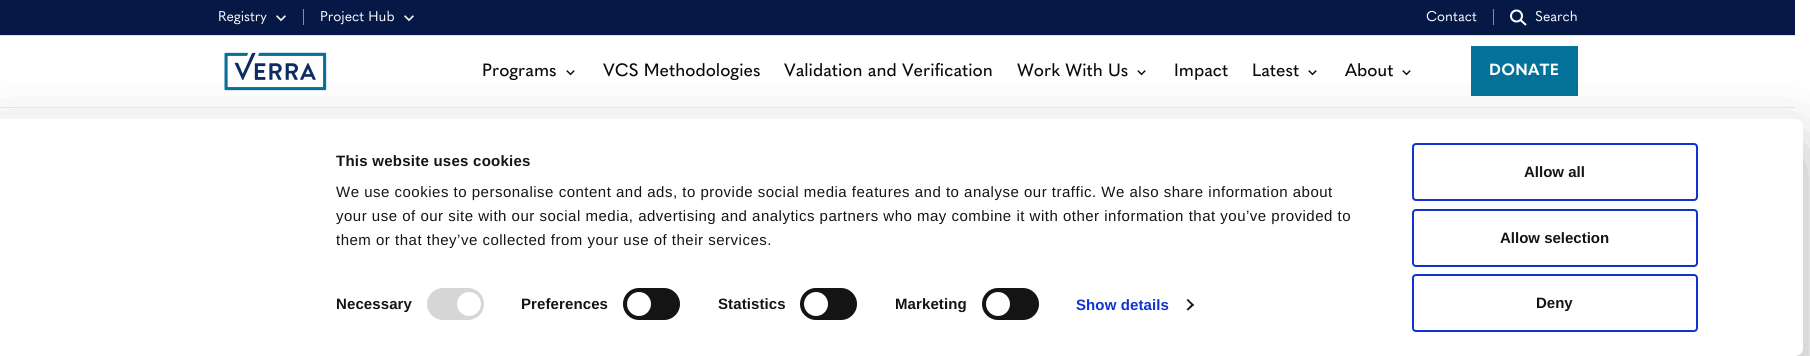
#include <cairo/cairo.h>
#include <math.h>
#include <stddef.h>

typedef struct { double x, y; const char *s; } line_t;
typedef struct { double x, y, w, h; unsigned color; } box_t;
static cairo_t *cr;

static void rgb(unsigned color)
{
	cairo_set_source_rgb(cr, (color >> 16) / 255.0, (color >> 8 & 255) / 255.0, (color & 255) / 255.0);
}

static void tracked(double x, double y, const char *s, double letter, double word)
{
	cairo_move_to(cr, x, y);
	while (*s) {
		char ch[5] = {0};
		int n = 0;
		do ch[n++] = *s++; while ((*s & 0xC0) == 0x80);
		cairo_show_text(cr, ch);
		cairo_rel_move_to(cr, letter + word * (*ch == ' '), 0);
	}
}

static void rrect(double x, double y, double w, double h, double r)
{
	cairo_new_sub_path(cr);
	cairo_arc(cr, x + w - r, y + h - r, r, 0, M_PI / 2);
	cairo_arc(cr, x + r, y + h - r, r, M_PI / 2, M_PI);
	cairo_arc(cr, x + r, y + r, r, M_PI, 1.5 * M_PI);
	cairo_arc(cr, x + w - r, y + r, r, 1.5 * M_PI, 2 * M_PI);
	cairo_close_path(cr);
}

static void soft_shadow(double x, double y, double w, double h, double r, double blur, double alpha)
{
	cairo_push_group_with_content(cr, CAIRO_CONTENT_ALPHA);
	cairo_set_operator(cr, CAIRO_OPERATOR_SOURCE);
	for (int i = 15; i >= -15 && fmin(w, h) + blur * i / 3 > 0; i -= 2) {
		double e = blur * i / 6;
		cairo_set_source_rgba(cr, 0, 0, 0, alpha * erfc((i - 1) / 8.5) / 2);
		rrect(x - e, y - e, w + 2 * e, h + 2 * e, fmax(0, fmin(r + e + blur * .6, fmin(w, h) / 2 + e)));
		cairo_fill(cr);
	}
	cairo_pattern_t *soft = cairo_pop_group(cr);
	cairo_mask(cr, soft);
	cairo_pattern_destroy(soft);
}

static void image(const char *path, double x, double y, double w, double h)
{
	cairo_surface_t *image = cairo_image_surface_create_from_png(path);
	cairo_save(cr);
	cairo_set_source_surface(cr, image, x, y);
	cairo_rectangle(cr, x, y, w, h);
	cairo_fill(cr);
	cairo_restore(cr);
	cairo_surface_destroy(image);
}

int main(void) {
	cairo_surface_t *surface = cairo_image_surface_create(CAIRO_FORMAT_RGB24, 1810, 356);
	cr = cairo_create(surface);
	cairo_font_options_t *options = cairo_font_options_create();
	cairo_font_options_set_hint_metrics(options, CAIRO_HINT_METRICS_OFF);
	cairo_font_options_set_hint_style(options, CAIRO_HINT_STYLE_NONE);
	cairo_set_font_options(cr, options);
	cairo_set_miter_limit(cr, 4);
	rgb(0xffffff);
	cairo_paint(cr);
	{
		static const box_t items[] = {
			{0, 107, 1795, 1, 0xeaeaea},
			{0, 0, 1795, 35, 0x061946},
			{0, 35, 1795, 1, 0xe0e0e0},
		};
		for (size_t i = 0; i < sizeof items / sizeof *items; i++) {
			rgb(items[i].color);
			cairo_rectangle(cr, items[i].x, items[i].y, items[i].w, items[i].h);
			cairo_fill(cr);
		}
	}
	image("img/1.png", 276, 15, 10, 7);
	rgb(0x838ca3);
	cairo_rectangle(cr, 303, 9, 1, 16);
	cairo_fill(cr);
	image("img/1.png", 404, 15, 10, 7);
	cairo_rectangle(cr, 1493, 9, 1, 16);
	cairo_fill(cr);
	cairo_arc(cr, 1516.5, 16, 5.5, 0, 2 * M_PI);
	rgb(0xffffff);
	cairo_stroke(cr);
	cairo_new_path(cr);
	cairo_move_to(cr, 1520.5, 20);
	cairo_line_to(cr, 1526, 25);
	cairo_stroke(cr);
	image("img/2.png", 224, 52, 103, 39);
	image("img/3.png", 566, 70, 9, 6);
	image("img/3.png", 1137, 70, 9, 6);
	image("img/3.png", 1308, 70, 9, 6);
	image("img/3.png", 1402, 70, 9, 6);
	rgb(0x047299);
	cairo_rectangle(cr, 1471, 46, 107, 50);
	cairo_fill(cr);
	rgb(0x000000);
	soft_shadow(-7, 149, 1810, 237, 8, 35, 0.3);
	rgb(0xffffff);
	rrect(-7, 119, 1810, 237, 8);
	cairo_fill(cr);
	rgb(0xd6d6d6);
	rrect(427, 288, 57, 32, 16);
	cairo_fill(cr);
	rgb(0xffffff);
	cairo_arc(cr, 469, 304, 12, 0, 2 * M_PI);
	cairo_fill(cr);
	rgb(0x141414);
	rrect(623, 288, 57, 32, 16);
	cairo_fill(cr);
	rgb(0xffffff);
	cairo_arc(cr, 639, 304, 12, 0, 2 * M_PI);
	cairo_fill(cr);
	rgb(0x141414);
	rrect(800, 288, 57, 32, 16);
	cairo_fill(cr);
	rgb(0xffffff);
	cairo_arc(cr, 816, 304, 12, 0, 2 * M_PI);
	cairo_fill(cr);
	rgb(0x141414);
	rrect(982, 288, 57, 32, 16);
	cairo_fill(cr);
	rgb(0xffffff);
	cairo_arc(cr, 998, 304, 12, 0, 2 * M_PI);
	cairo_fill(cr);
	rgb(0x141414);
	cairo_new_path(cr);
	cairo_move_to(cr, 1188, 299);
	cairo_line_to(cr, 1194, 305);
	cairo_line_to(cr, 1192.5, 306);
	cairo_line_to(cr, 1186.5, 300);
	cairo_close_path(cr);
	cairo_fill(cr);
	cairo_new_path(cr);
	cairo_move_to(cr, 1192.5, 303.5);
	cairo_line_to(cr, 1194, 305);
	cairo_line_to(cr, 1188, 310.5);
	cairo_line_to(cr, 1186.5, 309.5);
	cairo_close_path(cr);
	cairo_fill(cr);
	rrect(1413, 144, 284, 56, 3);
	rgb(0x1032cf);
	cairo_stroke(cr);
	rrect(1413, 210, 284, 56, 3);
	cairo_stroke(cr);
	rrect(1413, 275, 284, 56, 3);
	cairo_stroke(cr);
	cairo_select_font_face(cr, "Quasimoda", CAIRO_FONT_SLANT_NORMAL, CAIRO_FONT_WEIGHT_NORMAL);
	cairo_set_font_size(cr, 14);
	rgb(0xffffff);
	{
		static const line_t items[] = {
			{218, 21, "Registry"},
			{320, 21, "Project Hub"},
			{1426, 21, "Contact"},
			{1535, 21, "Search"},
		};
		for (size_t i = 0; i < sizeof items / sizeof *items; i++) {
			cairo_move_to(cr, items[i].x, items[i].y);
			cairo_show_text(cr, items[i].s);
		}
	}
	cairo_select_font_face(cr, "Quasimoda Medium", CAIRO_FONT_SLANT_NORMAL, CAIRO_FONT_WEIGHT_NORMAL);
	cairo_set_font_size(cr, 17.6);
	rgb(0x0a0a0a);
	{
		static const line_t items[] = {
			{482, 76, "Programs"},
			{603, 76, "VCS Methodologies"},
			{784, 76, "Validation and Verification"},
			{1017, 76, "Work With Us"},
			{1174, 76, "Impact"},
			{1252, 76, "Latest"},
			{1345, 76, "About"},
		};
		for (size_t i = 0; i < sizeof items / sizeof *items; i++) {
			cairo_move_to(cr, items[i].x, items[i].y);
			cairo_show_text(cr, items[i].s);
		}
	}
	cairo_select_font_face(cr, "Quasimoda", CAIRO_FONT_SLANT_NORMAL, CAIRO_FONT_WEIGHT_BOLD);
	cairo_set_font_size(cr, 16);
	rgb(0xffffff);
	tracked(1489, 75, "DONATE", 0.25, 0);
	cairo_save(cr);
	cairo_rectangle(cr, 336, 149, 1047, 103);
	cairo_clip(cr);
	cairo_select_font_face(cr, "Liberation Sans", CAIRO_FONT_SLANT_NORMAL, CAIRO_FONT_WEIGHT_BOLD);
	cairo_set_font_size(cr, 15);
	rgb(0x141414);
	tracked(336, 166, "This website uses cookies", 0.25, 0);
	cairo_restore(cr);
	cairo_select_font_face(cr, "Liberation Sans", CAIRO_FONT_SLANT_NORMAL, CAIRO_FONT_WEIGHT_NORMAL);
	cairo_set_font_size(cr, 15);
	rgb(0x141414);
	{
		static const line_t items[] = {
			{336, 197, "We use cookies to personalise content and ads, to provide social media features and to analyse our traffic. We also share information about"},
			{336, 221, "your use of our site with our social media, advertising and analytics partners who may combine it with other information that you’ve provided to"},
			{336, 245, "them or that they’ve collected from your use of their services."},
		};
		for (size_t i = 0; i < sizeof items / sizeof *items; i++) {
			tracked(items[i].x, items[i].y, items[i].s, 0.5, 0);
		}
	}
	cairo_select_font_face(cr, "Liberation Sans", CAIRO_FONT_SLANT_NORMAL, CAIRO_FONT_WEIGHT_BOLD);
	{
		static const line_t items[] = {
			{336, 309, "Necessary"},
			{521, 309, "Preferences"},
			{718, 309, "Statistics"},
			{895, 309, "Marketing"},
		};
		for (size_t i = 0; i < sizeof items / sizeof *items; i++) {
			tracked(items[i].x, items[i].y, items[i].s, 0.1, 0);
		}
	}
	rgb(0x1032cf);
	tracked(1076, 310, "Show details", 0.1, 0);
	rgb(0x141414);
	{
		static const line_t items[] = {
			{1524, 177, "Allow all"},
			{1500, 243, "Allow selection"},
			{1536, 308, "Deny"},
		};
		for (size_t i = 0; i < sizeof items / sizeof *items; i++) {
			cairo_move_to(cr, items[i].x, items[i].y);
			cairo_show_text(cr, items[i].s);
		}
	}
	cairo_surface_write_to_png(surface, "page.png");
	cairo_font_options_destroy(options);
	cairo_destroy(cr);
	cairo_surface_destroy(surface);
	return 0;
}
